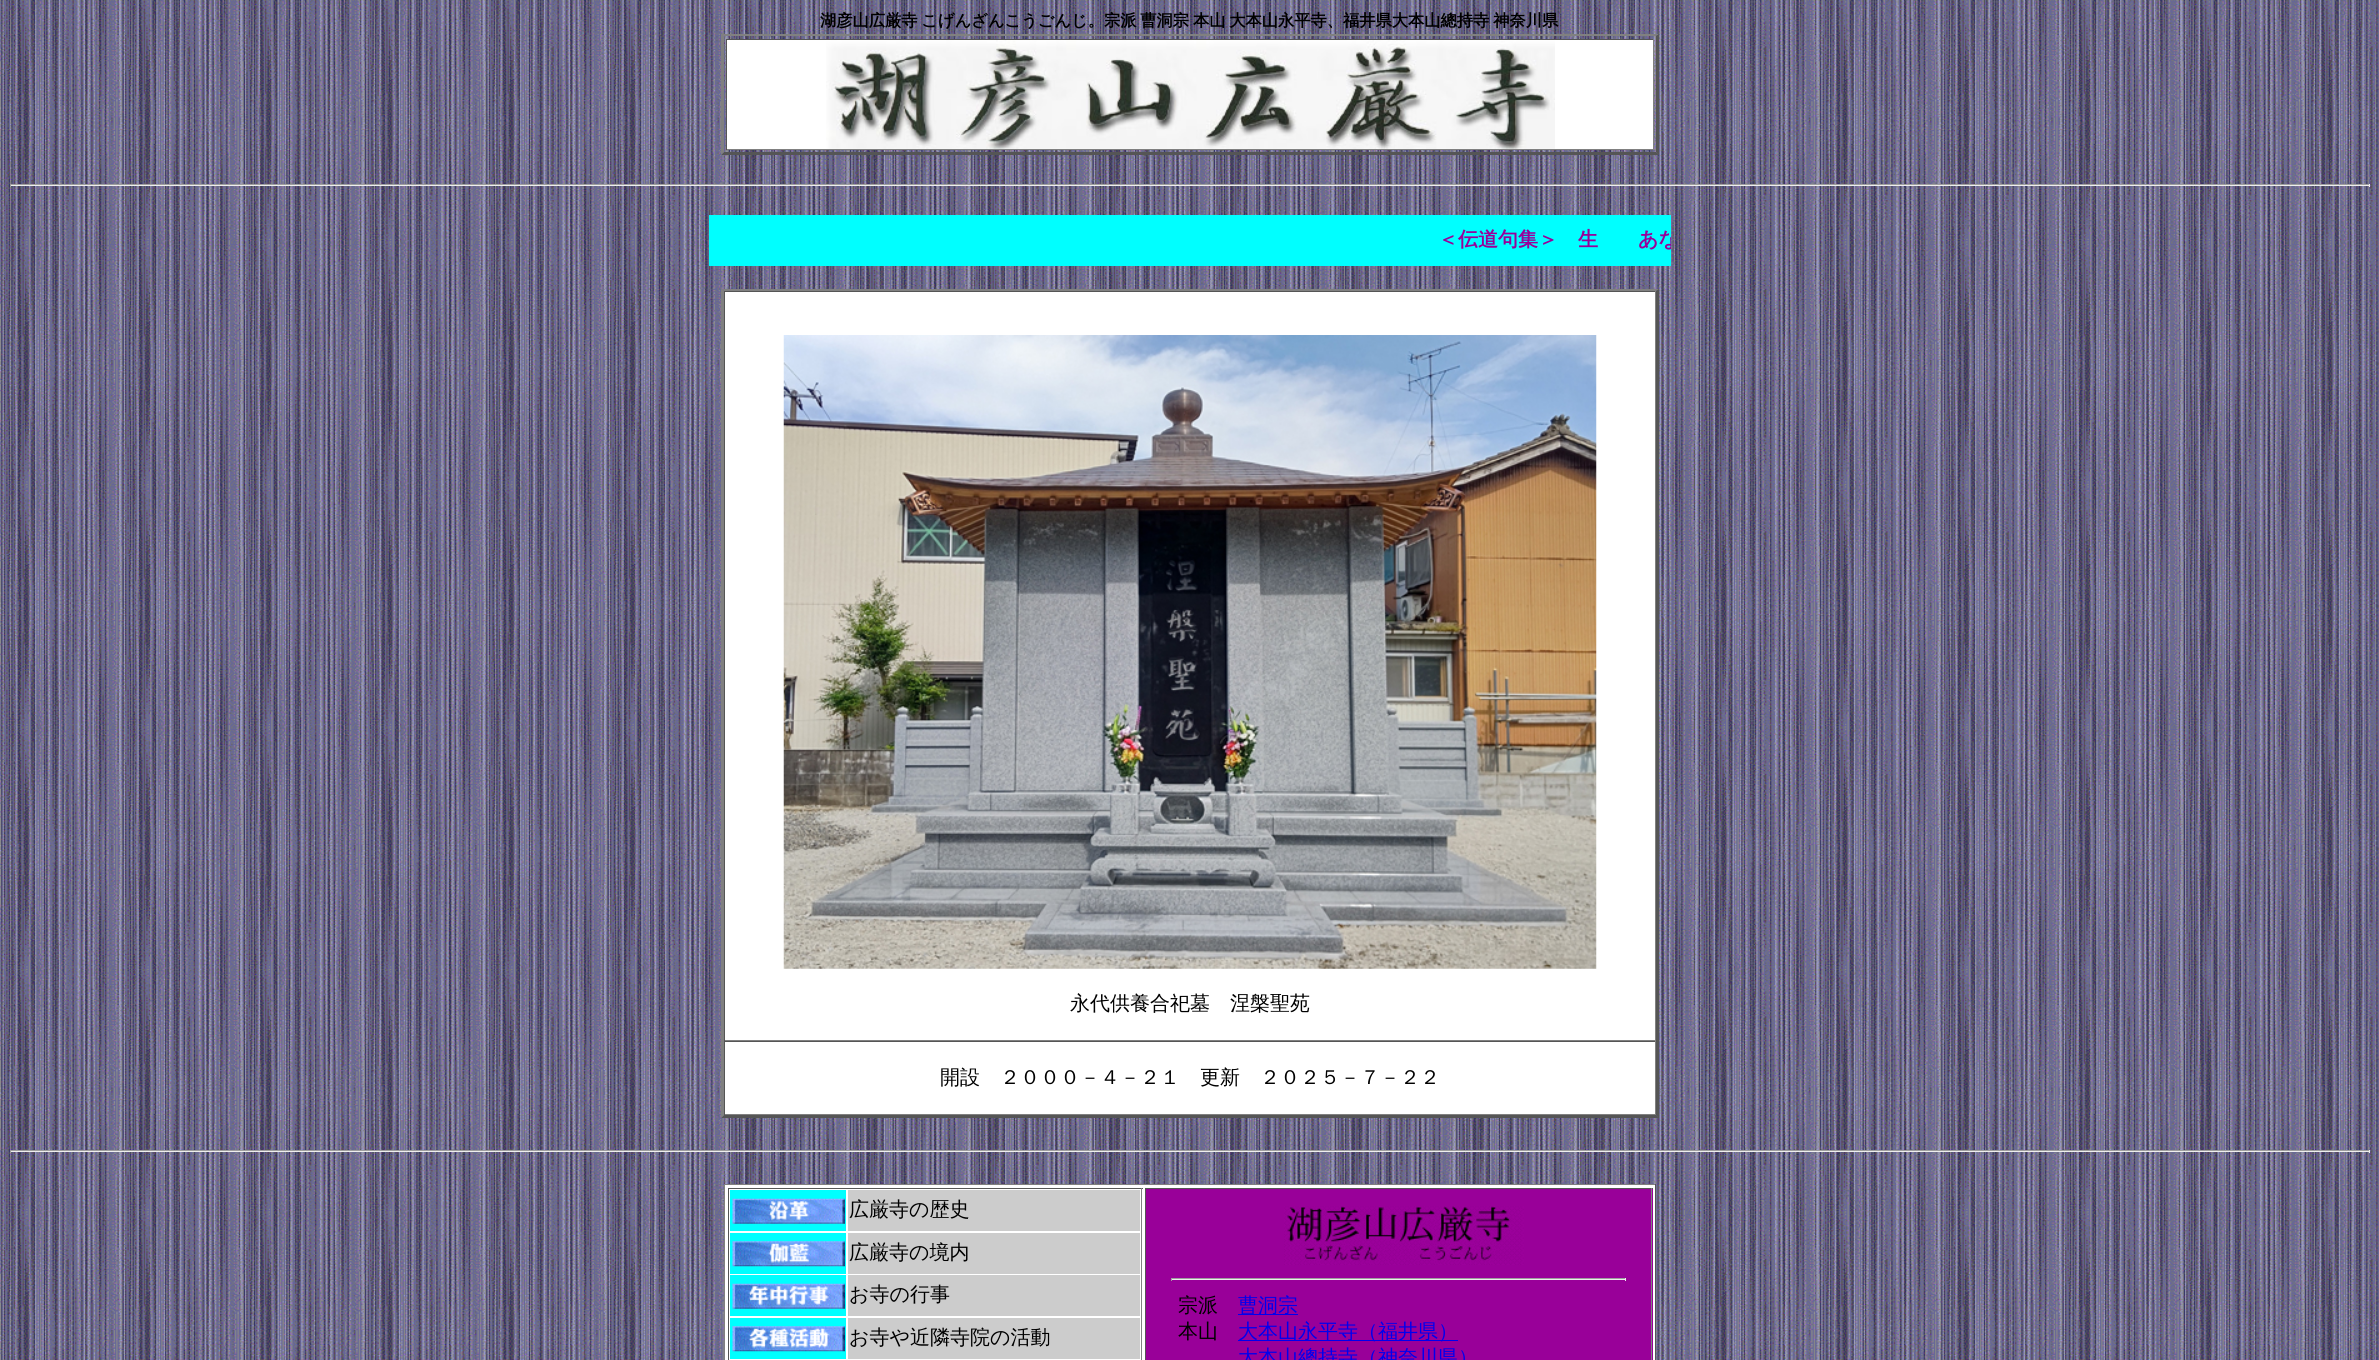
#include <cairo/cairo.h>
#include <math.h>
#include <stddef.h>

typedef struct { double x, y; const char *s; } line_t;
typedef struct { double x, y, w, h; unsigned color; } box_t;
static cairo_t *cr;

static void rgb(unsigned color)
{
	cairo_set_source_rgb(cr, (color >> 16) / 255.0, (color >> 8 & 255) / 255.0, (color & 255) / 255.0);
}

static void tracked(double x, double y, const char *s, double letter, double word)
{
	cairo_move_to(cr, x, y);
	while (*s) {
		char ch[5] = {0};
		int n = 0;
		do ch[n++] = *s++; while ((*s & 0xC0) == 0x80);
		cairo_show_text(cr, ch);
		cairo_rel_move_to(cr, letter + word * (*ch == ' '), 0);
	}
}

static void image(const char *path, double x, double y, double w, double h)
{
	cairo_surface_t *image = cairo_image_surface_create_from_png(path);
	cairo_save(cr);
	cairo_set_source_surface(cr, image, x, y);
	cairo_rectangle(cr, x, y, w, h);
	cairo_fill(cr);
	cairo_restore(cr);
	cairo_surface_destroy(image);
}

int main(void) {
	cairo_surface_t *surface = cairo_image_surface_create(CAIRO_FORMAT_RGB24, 2379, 1360);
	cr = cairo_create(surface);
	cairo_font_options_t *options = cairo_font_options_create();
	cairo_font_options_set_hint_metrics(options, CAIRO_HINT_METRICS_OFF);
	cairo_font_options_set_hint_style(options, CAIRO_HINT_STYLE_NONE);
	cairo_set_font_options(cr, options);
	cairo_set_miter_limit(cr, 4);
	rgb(0xffffff);
	cairo_paint(cr);
	image("img/1.png", 0, 0, 2379, 1360);
	rgb(0x808080);
	cairo_new_path(cr);
	cairo_move_to(cr, 721, 34);
	cairo_line_to(cr, 1659, 34);
	cairo_line_to(cr, 1656, 36);
	cairo_line_to(cr, 724, 36);
	cairo_close_path(cr);
	cairo_fill(cr);
	rgb(0x555555);
	cairo_new_path(cr);
	cairo_move_to(cr, 1659, 34);
	cairo_line_to(cr, 1659, 155);
	cairo_line_to(cr, 1656, 152);
	cairo_line_to(cr, 1656, 36);
	cairo_close_path(cr);
	cairo_fill(cr);
	cairo_new_path(cr);
	cairo_move_to(cr, 1659, 155);
	cairo_line_to(cr, 721, 155);
	cairo_line_to(cr, 724, 152);
	cairo_line_to(cr, 1656, 152);
	cairo_close_path(cr);
	cairo_fill(cr);
	rgb(0x808080);
	cairo_new_path(cr);
	cairo_move_to(cr, 721, 155);
	cairo_line_to(cr, 721, 34);
	cairo_line_to(cr, 724, 36);
	cairo_line_to(cr, 724, 152);
	cairo_close_path(cr);
	cairo_fill(cr);
	{
		static const box_t items[] = {
			{727, 40, 926, 109, 0xffffff},
			{726, 39, 928, 1, 0x555555},
			{1653, 39, 1, 111, 0x808080},
			{726, 149, 928, 1, 0x808080},
			{726, 39, 1, 111, 0x555555},
		};
		for (size_t i = 0; i < sizeof items / sizeof *items; i++) {
			rgb(items[i].color);
			cairo_rectangle(cr, items[i].x, items[i].y, items[i].w, items[i].h);
			cairo_fill(cr);
		}
	}
	image("img/2.png", 826, 40, 729, 109);
	{
		static const box_t items[] = {
			{10, 184, 2360, 1, 0x9f9f9f},
			{2369, 184, 1, 3, 0xeeeeee},
			{10, 185, 2360, 1, 0xeeeeee},
			{10, 184, 1, 3, 0x9f9f9f},
			{709, 215, 962, 51, 0x00ffff},
		};
		for (size_t i = 0; i < sizeof items / sizeof *items; i++) {
			rgb(items[i].color);
			cairo_rectangle(cr, items[i].x, items[i].y, items[i].w, items[i].h);
			cairo_fill(cr);
		}
	}
	rgb(0x808080);
	cairo_new_path(cr);
	cairo_move_to(cr, 721, 289);
	cairo_line_to(cr, 1659, 289);
	cairo_line_to(cr, 1656, 291);
	cairo_line_to(cr, 724, 291);
	cairo_close_path(cr);
	cairo_fill(cr);
	rgb(0x555555);
	cairo_new_path(cr);
	cairo_move_to(cr, 1659, 289);
	cairo_line_to(cr, 1659, 1118);
	cairo_line_to(cr, 1656, 1115);
	cairo_line_to(cr, 1656, 291);
	cairo_close_path(cr);
	cairo_fill(cr);
	cairo_new_path(cr);
	cairo_move_to(cr, 1659, 1118);
	cairo_line_to(cr, 721, 1118);
	cairo_line_to(cr, 724, 1115);
	cairo_line_to(cr, 1656, 1115);
	cairo_close_path(cr);
	cairo_fill(cr);
	rgb(0x808080);
	cairo_new_path(cr);
	cairo_move_to(cr, 721, 1118);
	cairo_line_to(cr, 721, 289);
	cairo_line_to(cr, 724, 291);
	cairo_line_to(cr, 724, 1115);
	cairo_close_path(cr);
	cairo_fill(cr);
	{
		static const box_t items[] = {
			{725, 292, 930, 748, 0xffffff},
			{724, 291, 932, 1, 0x555555},
			{1655, 291, 1, 750, 0x808080},
			{724, 1040, 932, 1, 0x808080},
			{724, 291, 1, 750, 0x555555},
		};
		for (size_t i = 0; i < sizeof items / sizeof *items; i++) {
			rgb(items[i].color);
			cairo_rectangle(cr, items[i].x, items[i].y, items[i].w, items[i].h);
			cairo_fill(cr);
		}
	}
	image("img/3.png", 783, 335, 814, 634);
	{
		static const box_t items[] = {
			{725, 1042, 930, 72, 0xffffff},
			{724, 1041, 932, 1, 0x555555},
			{1655, 1041, 1, 74, 0x808080},
			{724, 1114, 932, 1, 0x808080},
			{724, 1041, 1, 74, 0x555555},
			{10, 1150, 2360, 1, 0x9f9f9f},
			{2369, 1150, 1, 3, 0xeeeeee},
			{10, 1151, 2360, 1, 0xeeeeee},
			{10, 1150, 1, 3, 0x9f9f9f},
			{725, 1185, 930, 175, 0xffffff},
			{724, 1184, 932, 1, 0x808080},
			{1655, 1184, 1, 176, 0x555555},
			{724, 1184, 1, 176, 0x808080},
			{728, 1188, 415, 1, 0x555555},
			{1141, 1188, 1, 172, 0x808080},
			{728, 1188, 1, 172, 0x555555},
			{730, 1190, 116, 41, 0x00ffff},
		};
		for (size_t i = 0; i < sizeof items / sizeof *items; i++) {
			rgb(items[i].color);
			cairo_rectangle(cr, items[i].x, items[i].y, items[i].w, items[i].h);
			cairo_fill(cr);
		}
	}
	image("img/4.png", 732, 1198, 113, 26);
	rgb(0xcccccc);
	cairo_rectangle(cr, 848, 1190, 292, 41);
	cairo_fill(cr);
	rgb(0x00ffff);
	cairo_rectangle(cr, 730, 1233, 116, 41);
	cairo_fill(cr);
	image("img/5.png", 732, 1241, 113, 26);
	rgb(0xcccccc);
	cairo_rectangle(cr, 848, 1233, 292, 41);
	cairo_fill(cr);
	rgb(0x00ffff);
	cairo_rectangle(cr, 730, 1275, 116, 41);
	cairo_fill(cr);
	image("img/6.png", 732, 1283, 113, 26);
	rgb(0xcccccc);
	cairo_rectangle(cr, 848, 1275, 292, 41);
	cairo_fill(cr);
	rgb(0x00ffff);
	cairo_rectangle(cr, 730, 1318, 116, 41);
	cairo_fill(cr);
	image("img/7.png", 732, 1326, 113, 26);
	{
		static const box_t items[] = {
			{848, 1318, 292, 41, 0xcccccc},
			{1146, 1189, 507, 171, 0x990099},
			{1145, 1188, 508, 1, 0x555555},
			{1651, 1188, 1, 172, 0x808080},
			{1145, 1188, 1, 172, 0x555555},
		};
		for (size_t i = 0; i < sizeof items / sizeof *items; i++) {
			rgb(items[i].color);
			cairo_rectangle(cr, items[i].x, items[i].y, items[i].w, items[i].h);
			cairo_fill(cr);
		}
	}
	image("img/8.png", 1284, 1206, 240, 59);
	{
		static const box_t items[] = {
			{1171, 1278, 455, 1, 0x9f9f9f},
			{1625, 1278, 1, 3, 0xeeeeee},
			{1171, 1279, 455, 1, 0xeeeeee},
			{1171, 1278, 1, 3, 0x9f9f9f},
			{1238, 1314, 60, 1, 0x0000ee},
			{1238, 1340, 220, 1, 0x0000ee},
		};
		for (size_t i = 0; i < sizeof items / sizeof *items; i++) {
			rgb(items[i].color);
			cairo_rectangle(cr, items[i].x, items[i].y, items[i].w, items[i].h);
			cairo_fill(cr);
		}
	}
	cairo_select_font_face(cr, "WenQuanYi Zen Hei", CAIRO_FONT_SLANT_NORMAL, CAIRO_FONT_WEIGHT_BOLD);
	cairo_set_font_size(cr, 16.25);
	rgb(0x000000);
	tracked(820, 26, "湖彦山広厳寺 こげんざんこうごんじ。宗派 曹洞宗 本山 大本山永平寺、福井県大本山總持寺 神奈川県", 0, -1);
	cairo_save(cr);
	cairo_rectangle(cr, 709, 215, 962, 51);
	cairo_clip(cr);
	cairo_set_font_size(cr, 20);
	rgb(0x990099);
	cairo_move_to(cr, 1438, 246);
	cairo_show_text(cr, "＜伝道句集＞　生　　あな");
	cairo_restore(cr);
	cairo_select_font_face(cr, "WenQuanYi Zen Hei Medium", CAIRO_FONT_SLANT_NORMAL, CAIRO_FONT_WEIGHT_NORMAL);
	cairo_set_font_size(cr, 20);
	{
		static const line_t items[] = {
			{1070, 1010, "永代供養合祀墓　涅槃聖苑"},
			{940, 1084, "開設　２０００－４－２１　更新　２０２５－７－２２"},
			{849, 1216, "広厳寺の歴史"},
			{849, 1259, "広厳寺の境内"},
			{849, 1301, "お寺の行事"},
			{849, 1344, "お寺や近隣寺院の活動"},
			{1178, 1312, "宗派"},
		};
		for (size_t i = 0; i < sizeof items / sizeof *items; i++) {
			cairo_move_to(cr, items[i].x, items[i].y);
			cairo_show_text(cr, items[i].s);
		}
	}
	rgb(0x0000ee);
	cairo_move_to(cr, 1238, 1312);
	cairo_show_text(cr, "曹洞宗");
	rgb(0x000000);
	cairo_move_to(cr, 1178, 1338);
	cairo_show_text(cr, "本山");
	rgb(0x0000ee);
	cairo_move_to(cr, 1238, 1338);
	cairo_show_text(cr, "大本山永平寺（福井県）");
	cairo_move_to(cr, 1238, 1364);
	cairo_show_text(cr, "大本山總持寺（神奈川県）");
	cairo_surface_write_to_png(surface, "page.png");
	cairo_font_options_destroy(options);
	cairo_destroy(cr);
	cairo_surface_destroy(surface);
	return 0;
}
